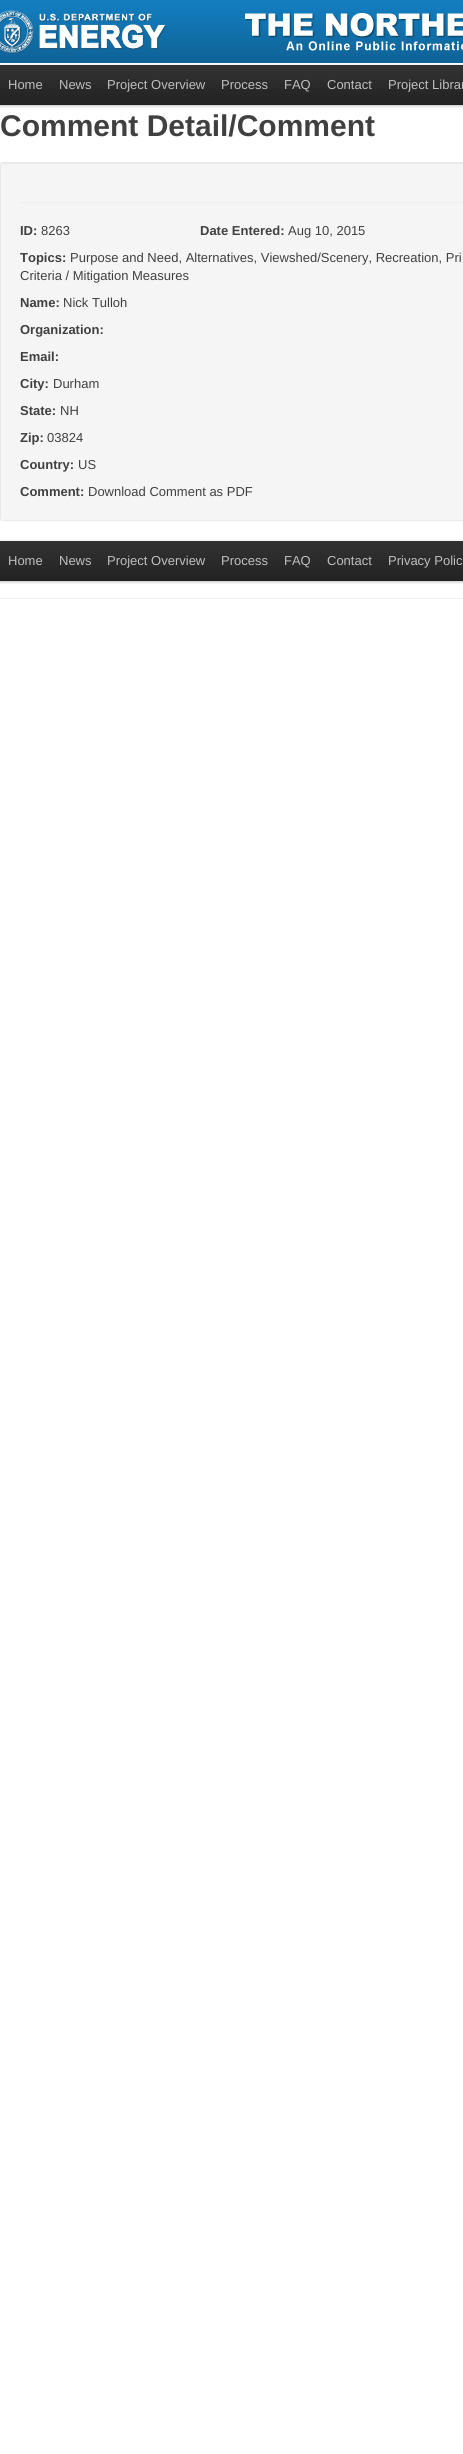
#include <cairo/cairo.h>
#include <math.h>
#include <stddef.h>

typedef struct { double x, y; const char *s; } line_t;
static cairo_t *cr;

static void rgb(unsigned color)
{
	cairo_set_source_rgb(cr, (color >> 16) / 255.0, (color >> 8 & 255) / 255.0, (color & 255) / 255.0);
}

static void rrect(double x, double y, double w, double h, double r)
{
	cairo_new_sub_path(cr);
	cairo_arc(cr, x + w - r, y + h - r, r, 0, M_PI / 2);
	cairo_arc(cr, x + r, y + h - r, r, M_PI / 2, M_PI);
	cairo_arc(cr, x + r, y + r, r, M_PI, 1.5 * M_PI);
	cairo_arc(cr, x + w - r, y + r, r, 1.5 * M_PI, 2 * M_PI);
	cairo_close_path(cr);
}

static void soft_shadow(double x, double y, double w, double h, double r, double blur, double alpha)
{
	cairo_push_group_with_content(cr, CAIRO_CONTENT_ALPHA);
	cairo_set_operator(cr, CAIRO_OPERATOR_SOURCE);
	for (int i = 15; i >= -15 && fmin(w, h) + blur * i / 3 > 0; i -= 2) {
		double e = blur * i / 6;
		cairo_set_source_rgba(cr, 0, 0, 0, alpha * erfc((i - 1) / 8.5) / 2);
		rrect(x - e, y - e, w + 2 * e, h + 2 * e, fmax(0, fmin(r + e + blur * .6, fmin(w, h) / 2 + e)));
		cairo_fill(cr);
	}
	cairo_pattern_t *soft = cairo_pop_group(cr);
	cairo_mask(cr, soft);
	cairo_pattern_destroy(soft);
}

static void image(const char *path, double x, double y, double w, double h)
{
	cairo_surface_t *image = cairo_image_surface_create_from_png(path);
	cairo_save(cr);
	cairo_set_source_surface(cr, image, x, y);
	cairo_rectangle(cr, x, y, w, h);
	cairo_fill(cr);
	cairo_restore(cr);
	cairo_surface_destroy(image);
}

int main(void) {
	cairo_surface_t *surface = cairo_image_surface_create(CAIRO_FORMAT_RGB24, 463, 2454);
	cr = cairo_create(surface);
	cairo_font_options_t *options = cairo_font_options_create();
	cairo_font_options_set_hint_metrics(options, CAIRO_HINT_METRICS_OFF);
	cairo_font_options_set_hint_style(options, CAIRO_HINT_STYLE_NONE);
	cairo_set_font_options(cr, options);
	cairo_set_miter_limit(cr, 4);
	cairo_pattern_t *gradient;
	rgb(0xffffff);
	cairo_paint(cr);
	image("img/1.png", 0, 0, 463, 63);
	rgb(0x000000);
	soft_shadow(-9, 66, 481, 40, 4, 1.5, 0.25);
	gradient = cairo_pattern_create_linear(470, 65, 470, 105);
	cairo_pattern_add_color_stop_rgba(gradient, 0, 0.2, 0.2, 0.2, 1);
	cairo_pattern_add_color_stop_rgba(gradient, 1, 0.133, 0.133, 0.133, 1);
	cairo_set_source(cr, gradient);
	cairo_pattern_destroy(gradient);
	cairo_rectangle(cr, 0, 65, 463, 39);
	cairo_fill(cr);
	rgb(0x1f1f1f);
	cairo_new_path(cr);
	cairo_move_to(cr, -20, 100);
	cairo_curve_to(cr, -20, 103, -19, 105, -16, 105);
	cairo_line_to(cr, 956, 105);
	cairo_curve_to(cr, 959, 105, 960, 103, 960, 100);
	cairo_curve_to(cr, 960, 102, 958, 104, 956, 104);
	cairo_line_to(cr, -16, 104);
	cairo_curve_to(cr, -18, 104, -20, 102, -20, 100);
	cairo_close_path(cr);
	cairo_fill(cr);
	rgb(0xf5f5f5);
	rrect(0, 162, 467, 359, 4);
	cairo_fill(cr);
	rgb(0xe9e9e9);
	cairo_new_path(cr);
	cairo_move_to(cr, 4, 164);
	cairo_line_to(cr, 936, 164);
	cairo_curve_to(cr, 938, 164, 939, 165, 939, 167);
	cairo_curve_to(cr, 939, 165, 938, 163, 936, 163);
	cairo_line_to(cr, 4, 163);
	cairo_curve_to(cr, 2, 163, 1, 165, 1, 167);
	cairo_curve_to(cr, 1, 165, 2, 164, 4, 164);
	cairo_close_path(cr);
	cairo_fill(cr);
	cairo_rectangle(cr, 0.5, 162.5, 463, 358);
	cairo_set_source_rgba(cr, 0, 0, 0, 0.05);
	cairo_set_line_width(cr, 1);
	cairo_stroke(cr);
	rgb(0xeeeeee);
	cairo_rectangle(cr, 20, 202, 443, 1);
	cairo_fill(cr);
	rgb(0x000000);
	soft_shadow(-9, 542, 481, 40, 4, 1.5, 0.25);
	gradient = cairo_pattern_create_linear(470, 541, 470, 581);
	cairo_pattern_add_color_stop_rgba(gradient, 0, 0.2, 0.2, 0.2, 1);
	cairo_pattern_add_color_stop_rgba(gradient, 1, 0.133, 0.133, 0.133, 1);
	cairo_set_source(cr, gradient);
	cairo_pattern_destroy(gradient);
	cairo_rectangle(cr, 0, 541, 463, 39);
	cairo_fill(cr);
	rgb(0x1f1f1f);
	cairo_new_path(cr);
	cairo_move_to(cr, -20, 576);
	cairo_curve_to(cr, -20, 579, -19, 581, -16, 581);
	cairo_line_to(cr, 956, 581);
	cairo_curve_to(cr, 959, 581, 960, 579, 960, 576);
	cairo_curve_to(cr, 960, 578, 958, 580, 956, 580);
	cairo_line_to(cr, -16, 580);
	cairo_curve_to(cr, -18, 580, -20, 578, -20, 576);
	cairo_close_path(cr);
	cairo_fill(cr);
	rgb(0xeeeeee);
	cairo_rectangle(cr, 0, 598, 463, 1);
	cairo_fill(cr);
	cairo_select_font_face(cr, "Liberation Sans", CAIRO_FONT_SLANT_NORMAL, CAIRO_FONT_WEIGHT_NORMAL);
	cairo_set_font_size(cr, 13);
	rgb(0xbfbfbf);
	{
		static const line_t items[] = {
			{8, 89, "Home"},
			{59, 89, "News"},
			{107, 89, "Project Overview"},
			{221, 89, "Process"},
			{284, 89, "FAQ"},
			{327, 89, "Contact"},
			{388, 89, "Project Librar"},
		};
		for (size_t i = 0; i < sizeof items / sizeof *items; i++) {
			cairo_move_to(cr, items[i].x, items[i].y);
			cairo_show_text(cr, items[i].s);
		}
	}
	cairo_select_font_face(cr, "Liberation Sans", CAIRO_FONT_SLANT_NORMAL, CAIRO_FONT_WEIGHT_BOLD);
	cairo_set_font_size(cr, 30);
	rgb(0x404040);
	cairo_move_to(cr, 0, 136);
	cairo_show_text(cr, "Comment Detail/Comment");
	cairo_set_font_size(cr, 13);
	cairo_move_to(cr, 20, 235);
	cairo_show_text(cr, "ID:");
	cairo_select_font_face(cr, "Liberation Sans", CAIRO_FONT_SLANT_NORMAL, CAIRO_FONT_WEIGHT_NORMAL);
	cairo_move_to(cr, 41, 235);
	cairo_show_text(cr, "8263");
	cairo_select_font_face(cr, "Liberation Sans", CAIRO_FONT_SLANT_NORMAL, CAIRO_FONT_WEIGHT_BOLD);
	cairo_move_to(cr, 200, 235);
	cairo_show_text(cr, "Date Entered:");
	cairo_select_font_face(cr, "Liberation Sans", CAIRO_FONT_SLANT_NORMAL, CAIRO_FONT_WEIGHT_NORMAL);
	cairo_move_to(cr, 288, 235);
	cairo_show_text(cr, "Aug 10, 2015");
	cairo_select_font_face(cr, "Liberation Sans", CAIRO_FONT_SLANT_NORMAL, CAIRO_FONT_WEIGHT_BOLD);
	cairo_move_to(cr, 20, 262);
	cairo_show_text(cr, "Topics:");
	cairo_select_font_face(cr, "Liberation Sans", CAIRO_FONT_SLANT_NORMAL, CAIRO_FONT_WEIGHT_NORMAL);
	cairo_move_to(cr, 70, 262);
	cairo_show_text(cr, "Purpose and Need, Alternatives, Viewshed/Scenery, Recreation, Pri");
	cairo_move_to(cr, 20, 280);
	cairo_show_text(cr, "Criteria / Mitigation Measures");
	cairo_select_font_face(cr, "Liberation Sans", CAIRO_FONT_SLANT_NORMAL, CAIRO_FONT_WEIGHT_BOLD);
	cairo_move_to(cr, 20, 307);
	cairo_show_text(cr, "Name:");
	cairo_select_font_face(cr, "Liberation Sans", CAIRO_FONT_SLANT_NORMAL, CAIRO_FONT_WEIGHT_NORMAL);
	cairo_move_to(cr, 63, 307);
	cairo_show_text(cr, "Nick Tulloh");
	cairo_select_font_face(cr, "Liberation Sans", CAIRO_FONT_SLANT_NORMAL, CAIRO_FONT_WEIGHT_BOLD);
	{
		static const line_t items[] = {
			{20, 334, "Organization:"},
			{20, 361, "Email:"},
			{20, 388, "City:"},
		};
		for (size_t i = 0; i < sizeof items / sizeof *items; i++) {
			cairo_move_to(cr, items[i].x, items[i].y);
			cairo_show_text(cr, items[i].s);
		}
	}
	cairo_select_font_face(cr, "Liberation Sans", CAIRO_FONT_SLANT_NORMAL, CAIRO_FONT_WEIGHT_NORMAL);
	cairo_move_to(cr, 53, 388);
	cairo_show_text(cr, "Durham");
	cairo_select_font_face(cr, "Liberation Sans", CAIRO_FONT_SLANT_NORMAL, CAIRO_FONT_WEIGHT_BOLD);
	cairo_move_to(cr, 20, 415);
	cairo_show_text(cr, "State:");
	cairo_select_font_face(cr, "Liberation Sans", CAIRO_FONT_SLANT_NORMAL, CAIRO_FONT_WEIGHT_NORMAL);
	cairo_move_to(cr, 60, 415);
	cairo_show_text(cr, "NH");
	cairo_select_font_face(cr, "Liberation Sans", CAIRO_FONT_SLANT_NORMAL, CAIRO_FONT_WEIGHT_BOLD);
	cairo_move_to(cr, 20, 442);
	cairo_show_text(cr, "Zip:");
	cairo_select_font_face(cr, "Liberation Sans", CAIRO_FONT_SLANT_NORMAL, CAIRO_FONT_WEIGHT_NORMAL);
	cairo_move_to(cr, 47, 442);
	cairo_show_text(cr, "03824");
	cairo_select_font_face(cr, "Liberation Sans", CAIRO_FONT_SLANT_NORMAL, CAIRO_FONT_WEIGHT_BOLD);
	cairo_move_to(cr, 20, 469);
	cairo_show_text(cr, "Country:");
	cairo_select_font_face(cr, "Liberation Sans", CAIRO_FONT_SLANT_NORMAL, CAIRO_FONT_WEIGHT_NORMAL);
	cairo_move_to(cr, 78, 469);
	cairo_show_text(cr, "US");
	cairo_select_font_face(cr, "Liberation Sans", CAIRO_FONT_SLANT_NORMAL, CAIRO_FONT_WEIGHT_BOLD);
	cairo_move_to(cr, 20, 496);
	cairo_show_text(cr, "Comment:");
	cairo_select_font_face(cr, "Liberation Sans", CAIRO_FONT_SLANT_NORMAL, CAIRO_FONT_WEIGHT_NORMAL);
	cairo_move_to(cr, 88, 496);
	cairo_show_text(cr, "Download Comment as PDF");
	rgb(0xbfbfbf);
	{
		static const line_t items[] = {
			{8, 565, "Home"},
			{59, 565, "News"},
			{107, 565, "Project Overview"},
			{221, 565, "Process"},
			{284, 565, "FAQ"},
			{327, 565, "Contact"},
			{388, 565, "Privacy Polic"},
		};
		for (size_t i = 0; i < sizeof items / sizeof *items; i++) {
			cairo_move_to(cr, items[i].x, items[i].y);
			cairo_show_text(cr, items[i].s);
		}
	}
	cairo_surface_write_to_png(surface, "page.png");
	cairo_font_options_destroy(options);
	cairo_destroy(cr);
	cairo_surface_destroy(surface);
	return 0;
}
